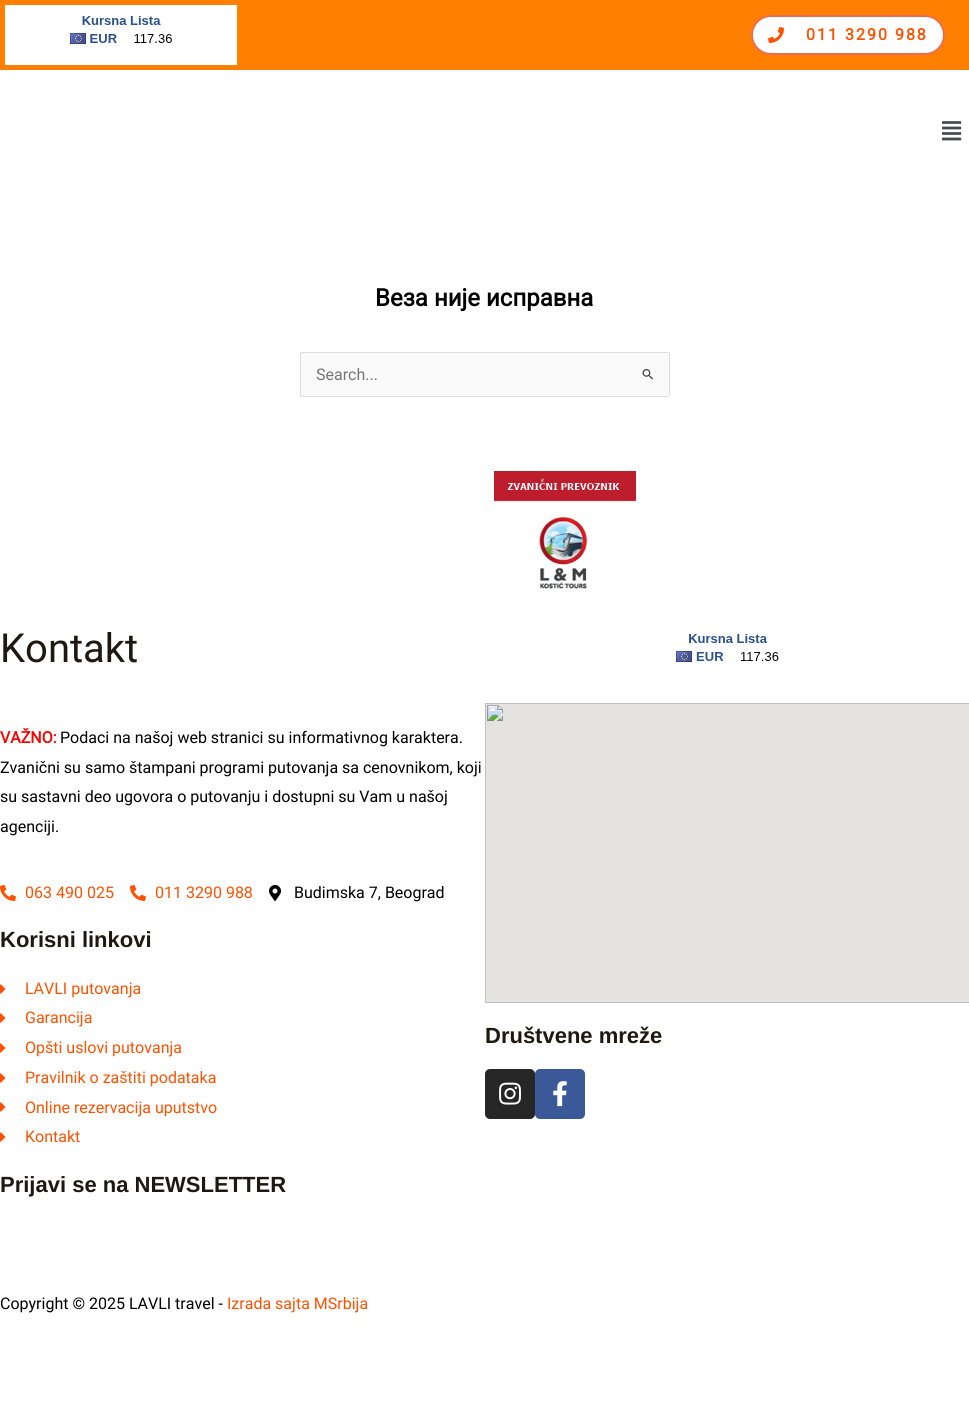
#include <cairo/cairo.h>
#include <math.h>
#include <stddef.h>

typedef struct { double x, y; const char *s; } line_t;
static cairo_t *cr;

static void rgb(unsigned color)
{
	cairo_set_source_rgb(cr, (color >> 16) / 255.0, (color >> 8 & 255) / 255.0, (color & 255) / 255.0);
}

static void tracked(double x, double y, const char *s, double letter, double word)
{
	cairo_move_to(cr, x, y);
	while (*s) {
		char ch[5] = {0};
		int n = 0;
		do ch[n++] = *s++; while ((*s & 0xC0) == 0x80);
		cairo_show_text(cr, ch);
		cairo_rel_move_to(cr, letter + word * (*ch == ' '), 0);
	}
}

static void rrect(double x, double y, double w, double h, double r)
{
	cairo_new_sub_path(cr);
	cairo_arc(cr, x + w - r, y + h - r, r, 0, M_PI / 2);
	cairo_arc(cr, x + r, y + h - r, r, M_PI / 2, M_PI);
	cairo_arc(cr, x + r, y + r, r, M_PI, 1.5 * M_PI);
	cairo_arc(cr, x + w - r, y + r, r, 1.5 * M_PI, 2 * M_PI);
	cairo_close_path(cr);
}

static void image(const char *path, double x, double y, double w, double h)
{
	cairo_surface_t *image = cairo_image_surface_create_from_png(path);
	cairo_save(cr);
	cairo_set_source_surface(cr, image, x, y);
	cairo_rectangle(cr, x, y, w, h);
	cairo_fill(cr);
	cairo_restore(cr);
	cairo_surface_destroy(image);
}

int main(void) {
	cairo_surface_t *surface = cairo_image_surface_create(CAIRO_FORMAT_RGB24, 969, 1424);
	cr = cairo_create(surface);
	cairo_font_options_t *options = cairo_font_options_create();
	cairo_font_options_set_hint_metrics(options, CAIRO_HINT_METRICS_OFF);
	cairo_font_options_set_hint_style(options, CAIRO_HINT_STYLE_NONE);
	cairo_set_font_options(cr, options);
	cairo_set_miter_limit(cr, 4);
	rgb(0xffffff);
	cairo_paint(cr);
	rgb(0xff8000);
	cairo_rectangle(cr, 0, 0, 969, 70);
	cairo_fill(cr);
	rgb(0xffffff);
	cairo_rectangle(cr, 5, 5, 232, 60);
	cairo_fill(cr);
	image("img/1.png", 70, 16, 102, 28);
	rrect(752, 16, 192, 38, 19);
	cairo_fill_preserve(cr);
	rgb(0xee6c4e);
	cairo_stroke(cr);
	image("img/2.png", 768, 27, 16, 16);
	image("img/3.png", 942, 121, 20, 20);
	rgb(0xfafafa);
	rrect(300.5, 352.5, 369, 44, 1.5);
	cairo_fill_preserve(cr);
	rgb(0xdddddd);
	cairo_set_line_width(cr, 1);
	cairo_stroke(cr);
	image("img/4.png", 642, 369, 11, 11);
	image("img/5.png", 494, 471, 142, 118);
	image("img/6.png", 0, 885, 16, 16);
	image("img/6.png", 130, 885, 16, 16);
	image("img/7.png", 269, 885, 12, 16);
	image("img/8.png", 0, 984, 6, 10);
	image("img/8.png", 0, 1013, 6, 10);
	image("img/8.png", 0, 1043, 6, 10);
	image("img/8.png", 0, 1073, 6, 10);
	image("img/8.png", 0, 1102, 6, 10);
	image("img/8.png", 0, 1132, 6, 10);
	image("img/9.png", 676, 634, 103, 28);
	image("img/10.png", 485, 703, 484, 300);
	rgb(0x262626);
	rrect(485, 1069, 50, 50, 5);
	cairo_fill(cr);
	image("img/11.png", 499, 1082, 22, 23);
	rgb(0x3b5998);
	rrect(535, 1069, 50, 50, 5);
	cairo_fill(cr);
	image("img/12.png", 553, 1081, 14, 26);
	cairo_select_font_face(cr, "Roboto", CAIRO_FONT_SLANT_NORMAL, CAIRO_FONT_WEIGHT_BOLD);
	cairo_set_font_size(cr, 16);
	rgb(0xff5100);
	tracked(806, 40, "011 3290 988", 2, 0);
	cairo_set_font_size(cr, 24);
	rgb(0x000000);
	cairo_move_to(cr, 375, 306);
	cairo_show_text(cr, "Веза није исправна");
	cairo_select_font_face(cr, "Roboto", CAIRO_FONT_SLANT_NORMAL, CAIRO_FONT_WEIGHT_NORMAL);
	cairo_set_font_size(cr, 16);
	rgb(0x757575);
	cairo_move_to(cr, 316, 380);
	cairo_show_text(cr, "Search...");
	cairo_set_font_size(cr, 40);
	rgb(0x1e1810);
	cairo_move_to(cr, 0, 662);
	cairo_show_text(cr, "Kontakt");
	cairo_select_font_face(cr, "Roboto", CAIRO_FONT_SLANT_NORMAL, CAIRO_FONT_WEIGHT_BOLD);
	cairo_set_font_size(cr, 16);
	rgb(0xff0000);
	cairo_move_to(cr, 0, 743);
	cairo_show_text(cr, "VAŽNO:");
	cairo_select_font_face(cr, "Roboto", CAIRO_FONT_SLANT_NORMAL, CAIRO_FONT_WEIGHT_NORMAL);
	rgb(0x000000);
	{
		static const line_t items[] = {
			{60, 743, "Podaci na našoj web stranici su informativnog karaktera."},
			{0, 773, "Zvanični su samo štampani programi putovanja sa cenovnikom, koji"},
			{0, 802, "su sastavni deo ugovora o putovanju i dostupni su Vam u našoj"},
			{0, 832, "agenciji."},
		};
		for (size_t i = 0; i < sizeof items / sizeof *items; i++) {
			cairo_move_to(cr, items[i].x, items[i].y);
			cairo_show_text(cr, items[i].s);
		}
	}
	rgb(0xff5100);
	cairo_move_to(cr, 25, 898);
	cairo_show_text(cr, "063 490 025");
	cairo_move_to(cr, 155, 898);
	cairo_show_text(cr, "011 3290 988");
	rgb(0x000000);
	cairo_move_to(cr, 294, 898);
	cairo_show_text(cr, "Budimska 7, Beograd");
	cairo_select_font_face(cr, "Liberation Sans", CAIRO_FONT_SLANT_NORMAL, CAIRO_FONT_WEIGHT_BOLD);
	cairo_set_font_size(cr, 22);
	rgb(0x1e1810);
	cairo_move_to(cr, 0, 947);
	cairo_show_text(cr, "Korisni linkovi");
	cairo_select_font_face(cr, "Roboto", CAIRO_FONT_SLANT_NORMAL, CAIRO_FONT_WEIGHT_NORMAL);
	cairo_set_font_size(cr, 16);
	rgb(0xff5100);
	{
		static const line_t items[] = {
			{25, 994, "LAVLI putovanja"},
			{25, 1023, "Garancija"},
			{25, 1053, "Opšti uslovi putovanja"},
			{25, 1083, "Pravilnik o zaštiti podataka"},
			{25, 1113, "Online rezervacija uputstvo"},
			{25, 1142, "Kontakt"},
		};
		for (size_t i = 0; i < sizeof items / sizeof *items; i++) {
			cairo_move_to(cr, items[i].x, items[i].y);
			cairo_show_text(cr, items[i].s);
		}
	}
	cairo_select_font_face(cr, "Liberation Sans", CAIRO_FONT_SLANT_NORMAL, CAIRO_FONT_WEIGHT_BOLD);
	cairo_set_font_size(cr, 22);
	rgb(0x1e1810);
	cairo_move_to(cr, 0, 1192);
	cairo_show_text(cr, "Prijavi se na NEWSLETTER");
	cairo_move_to(cr, 485, 1043);
	cairo_show_text(cr, "Društvene mreže");
	cairo_select_font_face(cr, "Roboto", CAIRO_FONT_SLANT_NORMAL, CAIRO_FONT_WEIGHT_NORMAL);
	cairo_set_font_size(cr, 16);
	rgb(0x000000);
	cairo_move_to(cr, 0, 1309);
	cairo_show_text(cr, "Copyright © 2025 LAVLI travel -");
	rgb(0xff5100);
	cairo_move_to(cr, 227, 1309);
	cairo_show_text(cr, "Izrada sajta MSrbija");
	cairo_surface_write_to_png(surface, "page.png");
	cairo_font_options_destroy(options);
	cairo_destroy(cr);
	cairo_surface_destroy(surface);
	return 0;
}
